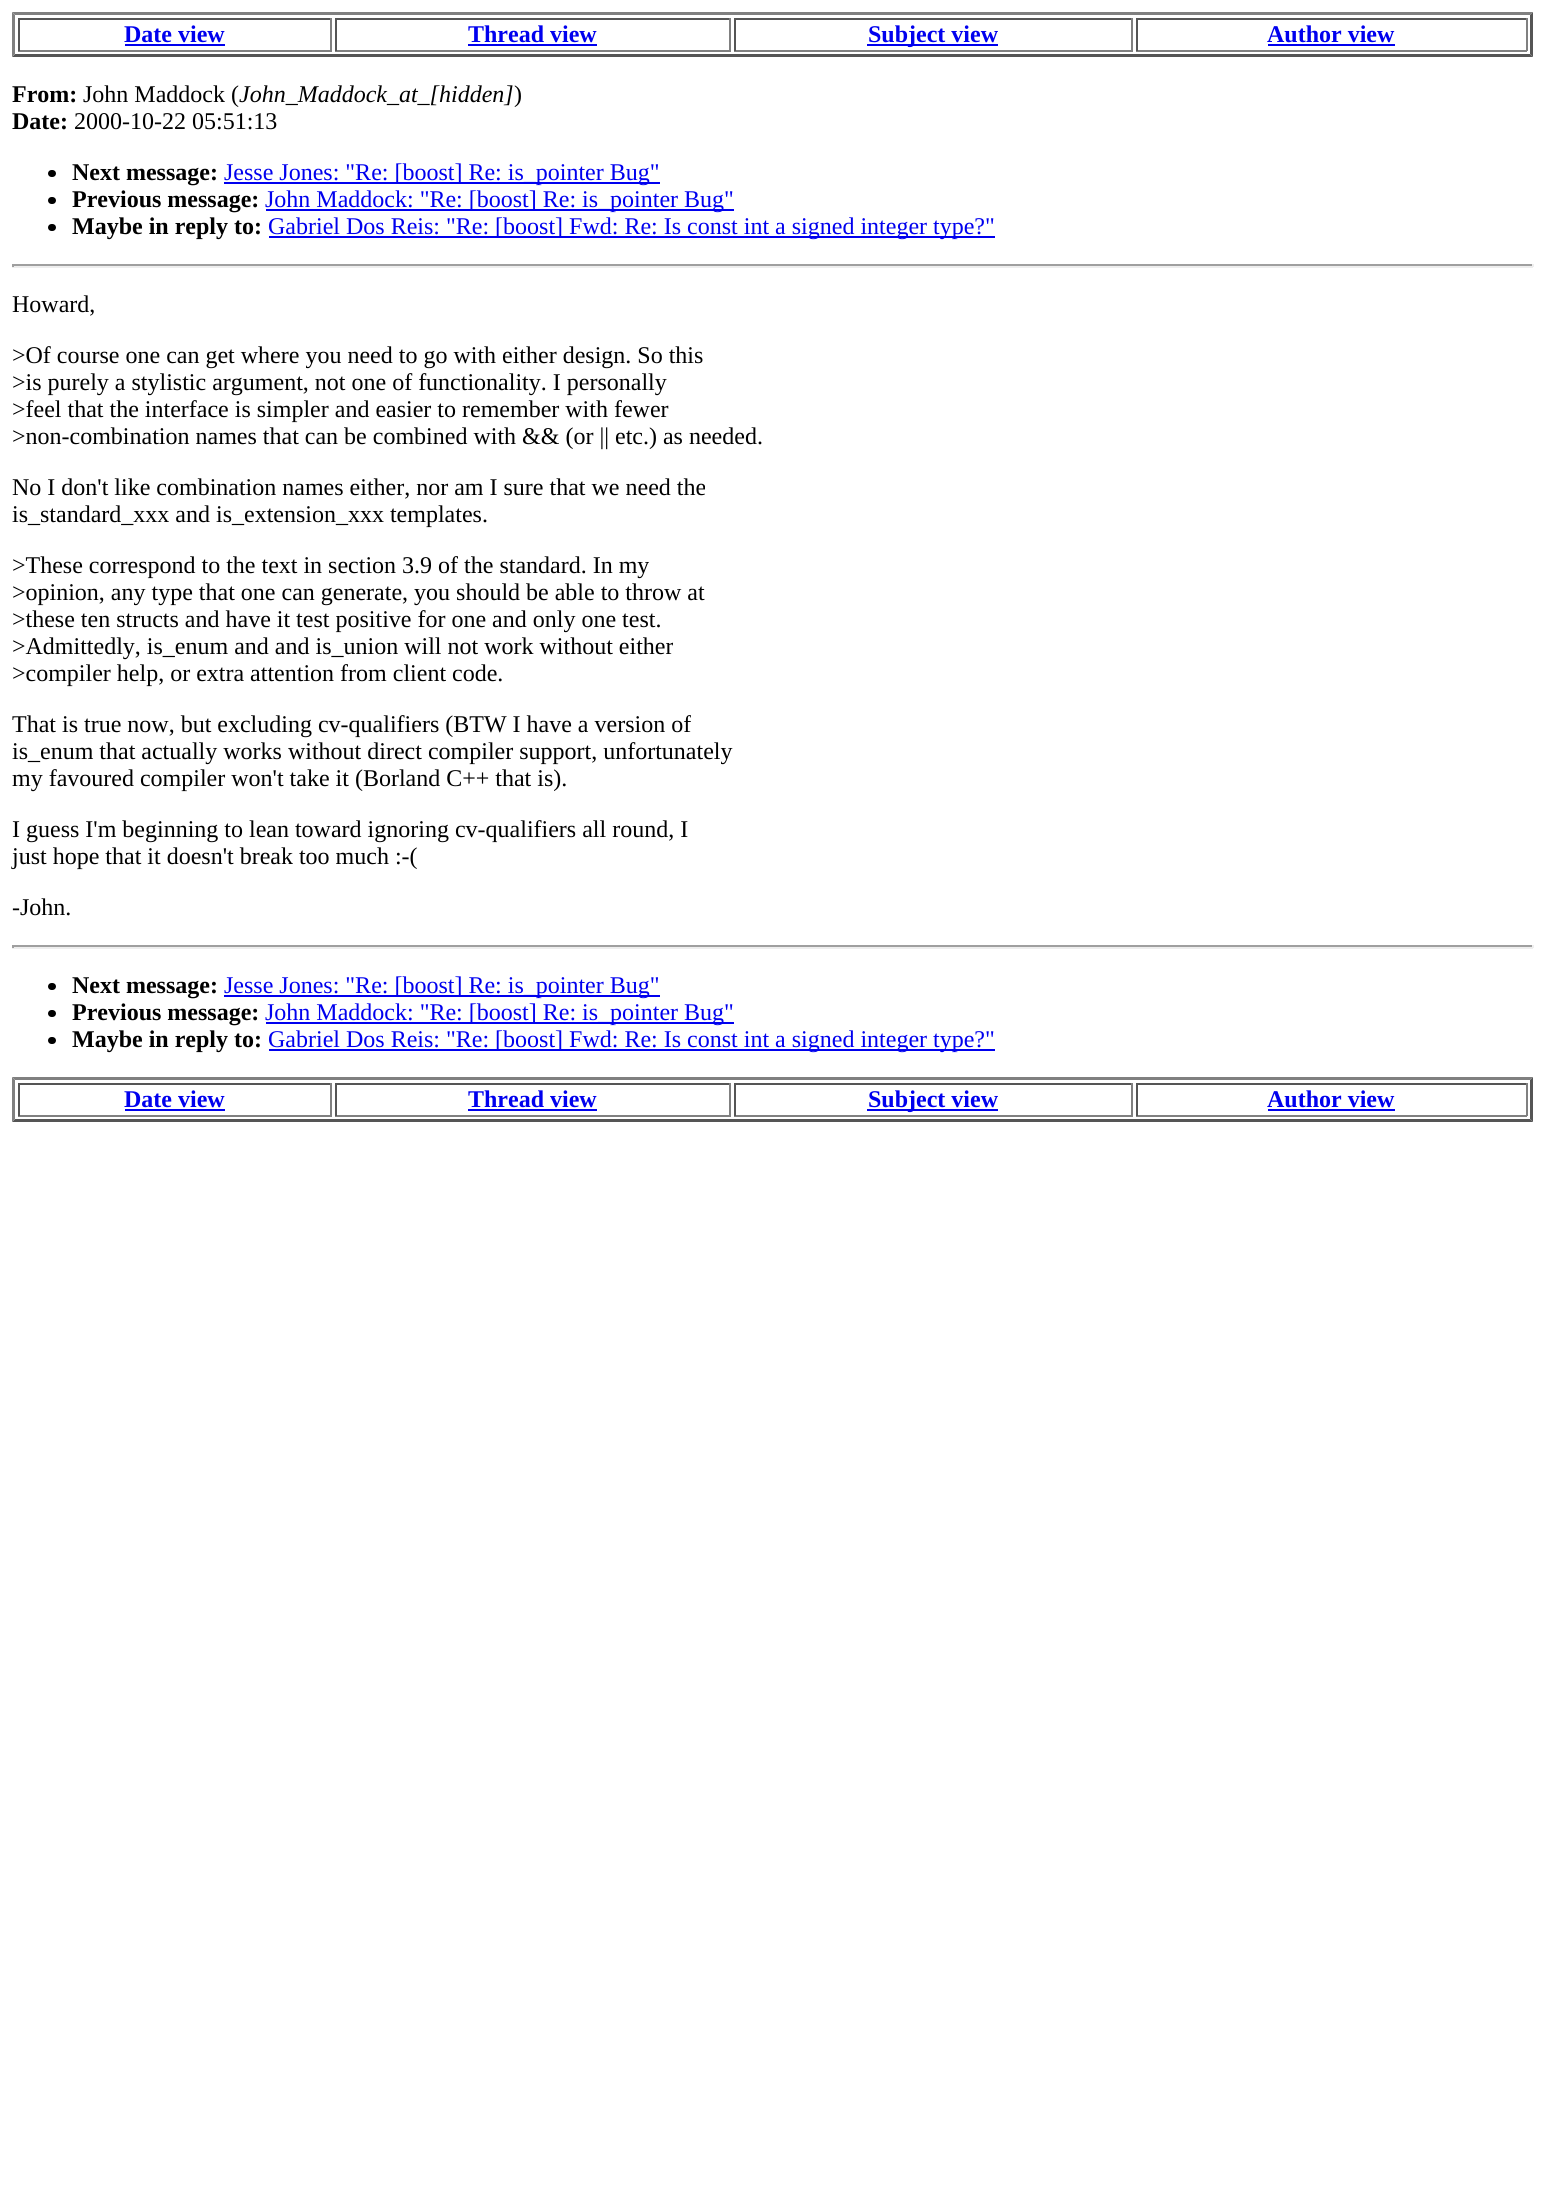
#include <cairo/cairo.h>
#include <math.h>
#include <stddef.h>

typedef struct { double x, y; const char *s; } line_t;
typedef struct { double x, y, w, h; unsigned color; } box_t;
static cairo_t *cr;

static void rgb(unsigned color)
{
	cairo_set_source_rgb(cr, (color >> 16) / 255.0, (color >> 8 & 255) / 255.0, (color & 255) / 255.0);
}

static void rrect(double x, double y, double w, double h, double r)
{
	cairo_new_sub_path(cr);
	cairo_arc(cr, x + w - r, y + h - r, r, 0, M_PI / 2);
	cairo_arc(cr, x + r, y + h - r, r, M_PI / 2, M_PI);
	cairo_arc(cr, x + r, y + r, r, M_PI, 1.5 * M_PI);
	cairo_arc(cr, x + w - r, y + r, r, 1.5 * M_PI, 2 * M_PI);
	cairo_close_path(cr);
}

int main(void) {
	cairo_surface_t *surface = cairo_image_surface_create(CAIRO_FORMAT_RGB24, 1544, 2210);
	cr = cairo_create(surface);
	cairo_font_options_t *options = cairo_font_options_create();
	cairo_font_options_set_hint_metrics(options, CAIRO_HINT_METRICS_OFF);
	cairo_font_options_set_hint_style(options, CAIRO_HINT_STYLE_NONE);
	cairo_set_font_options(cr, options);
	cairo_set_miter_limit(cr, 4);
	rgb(0xffffff);
	cairo_paint(cr);
	rgb(0x808080);
	cairo_new_path(cr);
	cairo_move_to(cr, 12, 12);
	cairo_line_to(cr, 1533, 12);
	cairo_line_to(cr, 1530, 15);
	cairo_line_to(cr, 15, 15);
	cairo_close_path(cr);
	cairo_fill(cr);
	rgb(0x555555);
	cairo_new_path(cr);
	cairo_move_to(cr, 1533, 12);
	cairo_line_to(cr, 1533, 57);
	cairo_line_to(cr, 1530, 54);
	cairo_line_to(cr, 1530, 15);
	cairo_close_path(cr);
	cairo_fill(cr);
	cairo_new_path(cr);
	cairo_move_to(cr, 1533, 57);
	cairo_line_to(cr, 12, 57);
	cairo_line_to(cr, 15, 54);
	cairo_line_to(cr, 1530, 54);
	cairo_close_path(cr);
	cairo_fill(cr);
	rgb(0x808080);
	cairo_new_path(cr);
	cairo_move_to(cr, 12, 57);
	cairo_line_to(cr, 12, 12);
	cairo_line_to(cr, 15, 15);
	cairo_line_to(cr, 15, 54);
	cairo_close_path(cr);
	cairo_fill(cr);
	{
		static const box_t items[] = {
			{18, 18, 314, 2, 0x555555},
			{330, 18, 2, 33, 0x808080},
			{18, 50, 314, 2, 0x808080},
			{18, 18, 2, 33, 0x555555},
			{125, 44, 100, 2, 0x0000ee},
			{335, 18, 396, 2, 0x555555},
			{729, 18, 2, 33, 0x808080},
			{335, 50, 396, 2, 0x808080},
			{335, 18, 2, 33, 0x555555},
			{468, 44, 129, 2, 0x0000ee},
			{734, 18, 399, 2, 0x555555},
			{1131, 18, 2, 33, 0x808080},
			{734, 50, 399, 2, 0x808080},
			{734, 18, 2, 33, 0x555555},
			{867, 44, 131, 2, 0x0000ee},
			{1136, 18, 391, 2, 0x555555},
			{1526, 18, 2, 33, 0x808080},
			{1136, 50, 391, 2, 0x808080},
			{1136, 18, 2, 33, 0x555555},
			{1268, 44, 127, 2, 0x0000ee},
		};
		for (size_t i = 0; i < sizeof items / sizeof *items; i++) {
			rgb(items[i].color);
			cairo_rectangle(cr, items[i].x, items[i].y, items[i].w, items[i].h);
			cairo_fill(cr);
		}
	}
	rgb(0x000000);
	rrect(48, 170, 8, 7, 3.5);
	cairo_fill(cr);
	rgb(0x0000ee);
	cairo_rectangle(cr, 224, 182, 436, 2);
	cairo_fill(cr);
	rgb(0x000000);
	rrect(48, 197, 8, 7, 3.5);
	cairo_fill(cr);
	rgb(0x0000ee);
	cairo_rectangle(cr, 266, 209, 468, 2);
	cairo_fill(cr);
	rgb(0x000000);
	rrect(48, 224, 8, 7, 3.5);
	cairo_fill(cr);
	{
		static const box_t items[] = {
			{269, 236, 726, 2, 0x0000ee},
			{12, 264, 1521, 2, 0x9f9f9f},
			{1532, 264, 2, 3, 0xeeeeee},
			{12, 266, 1521, 2, 0xeeeeee},
			{12, 264, 2, 3, 0x9f9f9f},
			{12, 945, 1521, 2, 0x9f9f9f},
			{1532, 945, 2, 3, 0xeeeeee},
			{12, 947, 1521, 2, 0xeeeeee},
			{12, 945, 2, 3, 0x9f9f9f},
		};
		for (size_t i = 0; i < sizeof items / sizeof *items; i++) {
			rgb(items[i].color);
			cairo_rectangle(cr, items[i].x, items[i].y, items[i].w, items[i].h);
			cairo_fill(cr);
		}
	}
	rgb(0x000000);
	rrect(48, 983, 8, 7, 3.5);
	cairo_fill(cr);
	rgb(0x0000ee);
	cairo_rectangle(cr, 224, 995, 436, 2);
	cairo_fill(cr);
	rgb(0x000000);
	rrect(48, 1010, 8, 7, 3.5);
	cairo_fill(cr);
	rgb(0x0000ee);
	cairo_rectangle(cr, 266, 1022, 468, 2);
	cairo_fill(cr);
	rgb(0x000000);
	rrect(48, 1037, 8, 7, 3.5);
	cairo_fill(cr);
	rgb(0x0000ee);
	cairo_rectangle(cr, 269, 1049, 726, 2);
	cairo_fill(cr);
	rgb(0x808080);
	cairo_new_path(cr);
	cairo_move_to(cr, 12, 1077);
	cairo_line_to(cr, 1533, 1077);
	cairo_line_to(cr, 1530, 1080);
	cairo_line_to(cr, 15, 1080);
	cairo_close_path(cr);
	cairo_fill(cr);
	rgb(0x555555);
	cairo_new_path(cr);
	cairo_move_to(cr, 1533, 1077);
	cairo_line_to(cr, 1533, 1122);
	cairo_line_to(cr, 1530, 1119);
	cairo_line_to(cr, 1530, 1080);
	cairo_close_path(cr);
	cairo_fill(cr);
	cairo_new_path(cr);
	cairo_move_to(cr, 1533, 1122);
	cairo_line_to(cr, 12, 1122);
	cairo_line_to(cr, 15, 1119);
	cairo_line_to(cr, 1530, 1119);
	cairo_close_path(cr);
	cairo_fill(cr);
	rgb(0x808080);
	cairo_new_path(cr);
	cairo_move_to(cr, 12, 1122);
	cairo_line_to(cr, 12, 1077);
	cairo_line_to(cr, 15, 1080);
	cairo_line_to(cr, 15, 1119);
	cairo_close_path(cr);
	cairo_fill(cr);
	{
		static const box_t items[] = {
			{18, 1083, 314, 2, 0x555555},
			{330, 1083, 2, 33, 0x808080},
			{18, 1115, 314, 2, 0x808080},
			{18, 1083, 2, 33, 0x555555},
			{125, 1109, 100, 2, 0x0000ee},
			{335, 1083, 396, 2, 0x555555},
			{729, 1083, 2, 33, 0x808080},
			{335, 1115, 396, 2, 0x808080},
			{335, 1083, 2, 33, 0x555555},
			{468, 1109, 129, 2, 0x0000ee},
			{734, 1083, 399, 2, 0x555555},
			{1131, 1083, 2, 33, 0x808080},
			{734, 1115, 399, 2, 0x808080},
			{734, 1083, 2, 33, 0x555555},
			{867, 1109, 131, 2, 0x0000ee},
			{1136, 1083, 391, 2, 0x555555},
			{1526, 1083, 2, 33, 0x808080},
			{1136, 1115, 391, 2, 0x808080},
			{1136, 1083, 2, 33, 0x555555},
			{1268, 1109, 127, 2, 0x0000ee},
		};
		for (size_t i = 0; i < sizeof items / sizeof *items; i++) {
			rgb(items[i].color);
			cairo_rectangle(cr, items[i].x, items[i].y, items[i].w, items[i].h);
			cairo_fill(cr);
		}
	}
	cairo_select_font_face(cr, "Liberation Serif", CAIRO_FONT_SLANT_NORMAL, CAIRO_FONT_WEIGHT_BOLD);
	cairo_set_font_size(cr, 24);
	{
		static const line_t items[] = {
			{124, 42, "Date view"},
			{468, 42, "Thread view"},
			{868, 42, "Subject view"},
			{1267, 42, "Author view"},
		};
		for (size_t i = 0; i < sizeof items / sizeof *items; i++) {
			cairo_move_to(cr, items[i].x, items[i].y);
			cairo_show_text(cr, items[i].s);
		}
	}
	rgb(0x000000);
	cairo_move_to(cr, 12, 102);
	cairo_show_text(cr, "From:");
	cairo_select_font_face(cr, "Liberation Serif", CAIRO_FONT_SLANT_NORMAL, CAIRO_FONT_WEIGHT_NORMAL);
	cairo_move_to(cr, 83, 102);
	cairo_show_text(cr, "John Maddock (");
	cairo_select_font_face(cr, "Liberation Serif", CAIRO_FONT_SLANT_ITALIC, CAIRO_FONT_WEIGHT_NORMAL);
	cairo_move_to(cr, 239, 102);
	cairo_show_text(cr, "John_Maddock_at_[hidden]");
	cairo_select_font_face(cr, "Liberation Serif", CAIRO_FONT_SLANT_NORMAL, CAIRO_FONT_WEIGHT_NORMAL);
	cairo_move_to(cr, 514, 102);
	cairo_show_text(cr, ")");
	cairo_select_font_face(cr, "Liberation Serif", CAIRO_FONT_SLANT_NORMAL, CAIRO_FONT_WEIGHT_BOLD);
	cairo_move_to(cr, 12, 129);
	cairo_show_text(cr, "Date:");
	cairo_select_font_face(cr, "Liberation Serif", CAIRO_FONT_SLANT_NORMAL, CAIRO_FONT_WEIGHT_NORMAL);
	cairo_move_to(cr, 74, 129);
	cairo_show_text(cr, "2000-10-22 05:51:13");
	cairo_select_font_face(cr, "Liberation Serif", CAIRO_FONT_SLANT_NORMAL, CAIRO_FONT_WEIGHT_BOLD);
	cairo_move_to(cr, 72, 180);
	cairo_show_text(cr, "Next message:");
	cairo_select_font_face(cr, "Liberation Serif", CAIRO_FONT_SLANT_NORMAL, CAIRO_FONT_WEIGHT_NORMAL);
	rgb(0x0000ee);
	cairo_move_to(cr, 224, 180);
	cairo_show_text(cr, "Jesse Jones: \"Re: [boost] Re: is_pointer Bug\"");
	cairo_select_font_face(cr, "Liberation Serif", CAIRO_FONT_SLANT_NORMAL, CAIRO_FONT_WEIGHT_BOLD);
	rgb(0x000000);
	cairo_move_to(cr, 72, 207);
	cairo_show_text(cr, "Previous message:");
	cairo_select_font_face(cr, "Liberation Serif", CAIRO_FONT_SLANT_NORMAL, CAIRO_FONT_WEIGHT_NORMAL);
	rgb(0x0000ee);
	cairo_move_to(cr, 265, 207);
	cairo_show_text(cr, "John Maddock: \"Re: [boost] Re: is_pointer Bug\"");
	cairo_select_font_face(cr, "Liberation Serif", CAIRO_FONT_SLANT_NORMAL, CAIRO_FONT_WEIGHT_BOLD);
	rgb(0x000000);
	cairo_move_to(cr, 72, 234);
	cairo_show_text(cr, "Maybe in reply to:");
	cairo_select_font_face(cr, "Liberation Serif", CAIRO_FONT_SLANT_NORMAL, CAIRO_FONT_WEIGHT_NORMAL);
	rgb(0x0000ee);
	cairo_move_to(cr, 268, 234);
	cairo_show_text(cr, "Gabriel Dos Reis: \"Re: [boost] Fwd: Re: Is const int a signed integer type?\"");
	rgb(0x000000);
	{
		static const line_t items[] = {
			{12, 312, "Howard,"},
			{12, 363, ">Of course one can get where you need to go with either design. So this"},
			{12, 390, ">is purely a stylistic argument, not one of functionality. I personally"},
			{12, 417, ">feel that the interface is simpler and easier to remember with fewer"},
			{12, 444, ">non-combination names that can be combined with && (or || etc.) as needed."},
			{12, 495, "No I don't like combination names either, nor am I sure that we need the"},
			{12, 522, "is_standard_xxx and is_extension_xxx templates."},
			{12, 573, ">These correspond to the text in section 3.9 of the standard. In my"},
			{12, 600, ">opinion, any type that one can generate, you should be able to throw at"},
			{12, 627, ">these ten structs and have it test positive for one and only one test."},
			{12, 654, ">Admittedly, is_enum and and is_union will not work without either"},
			{12, 681, ">compiler help, or extra attention from client code."},
			{12, 732, "That is true now, but excluding cv-qualifiers (BTW I have a version of"},
			{12, 759, "is_enum that actually works without direct compiler support, unfortunately"},
			{12, 786, "my favoured compiler won't take it (Borland C++ that is)."},
			{12, 837, "I guess I'm beginning to lean toward ignoring cv-qualifiers all round, I"},
			{12, 864, "just hope that it doesn't break too much :-("},
			{12, 915, "-John."},
		};
		for (size_t i = 0; i < sizeof items / sizeof *items; i++) {
			cairo_move_to(cr, items[i].x, items[i].y);
			cairo_show_text(cr, items[i].s);
		}
	}
	cairo_select_font_face(cr, "Liberation Serif", CAIRO_FONT_SLANT_NORMAL, CAIRO_FONT_WEIGHT_BOLD);
	cairo_move_to(cr, 72, 993);
	cairo_show_text(cr, "Next message:");
	cairo_select_font_face(cr, "Liberation Serif", CAIRO_FONT_SLANT_NORMAL, CAIRO_FONT_WEIGHT_NORMAL);
	rgb(0x0000ee);
	cairo_move_to(cr, 224, 993);
	cairo_show_text(cr, "Jesse Jones: \"Re: [boost] Re: is_pointer Bug\"");
	cairo_select_font_face(cr, "Liberation Serif", CAIRO_FONT_SLANT_NORMAL, CAIRO_FONT_WEIGHT_BOLD);
	rgb(0x000000);
	cairo_move_to(cr, 72, 1020);
	cairo_show_text(cr, "Previous message:");
	cairo_select_font_face(cr, "Liberation Serif", CAIRO_FONT_SLANT_NORMAL, CAIRO_FONT_WEIGHT_NORMAL);
	rgb(0x0000ee);
	cairo_move_to(cr, 265, 1020);
	cairo_show_text(cr, "John Maddock: \"Re: [boost] Re: is_pointer Bug\"");
	cairo_select_font_face(cr, "Liberation Serif", CAIRO_FONT_SLANT_NORMAL, CAIRO_FONT_WEIGHT_BOLD);
	rgb(0x000000);
	cairo_move_to(cr, 72, 1047);
	cairo_show_text(cr, "Maybe in reply to:");
	cairo_select_font_face(cr, "Liberation Serif", CAIRO_FONT_SLANT_NORMAL, CAIRO_FONT_WEIGHT_NORMAL);
	rgb(0x0000ee);
	cairo_move_to(cr, 268, 1047);
	cairo_show_text(cr, "Gabriel Dos Reis: \"Re: [boost] Fwd: Re: Is const int a signed integer type?\"");
	cairo_select_font_face(cr, "Liberation Serif", CAIRO_FONT_SLANT_NORMAL, CAIRO_FONT_WEIGHT_BOLD);
	{
		static const line_t items[] = {
			{124, 1107, "Date view"},
			{468, 1107, "Thread view"},
			{868, 1107, "Subject view"},
			{1267, 1107, "Author view"},
		};
		for (size_t i = 0; i < sizeof items / sizeof *items; i++) {
			cairo_move_to(cr, items[i].x, items[i].y);
			cairo_show_text(cr, items[i].s);
		}
	}
	cairo_surface_write_to_png(surface, "page.png");
	cairo_font_options_destroy(options);
	cairo_destroy(cr);
	cairo_surface_destroy(surface);
	return 0;
}
